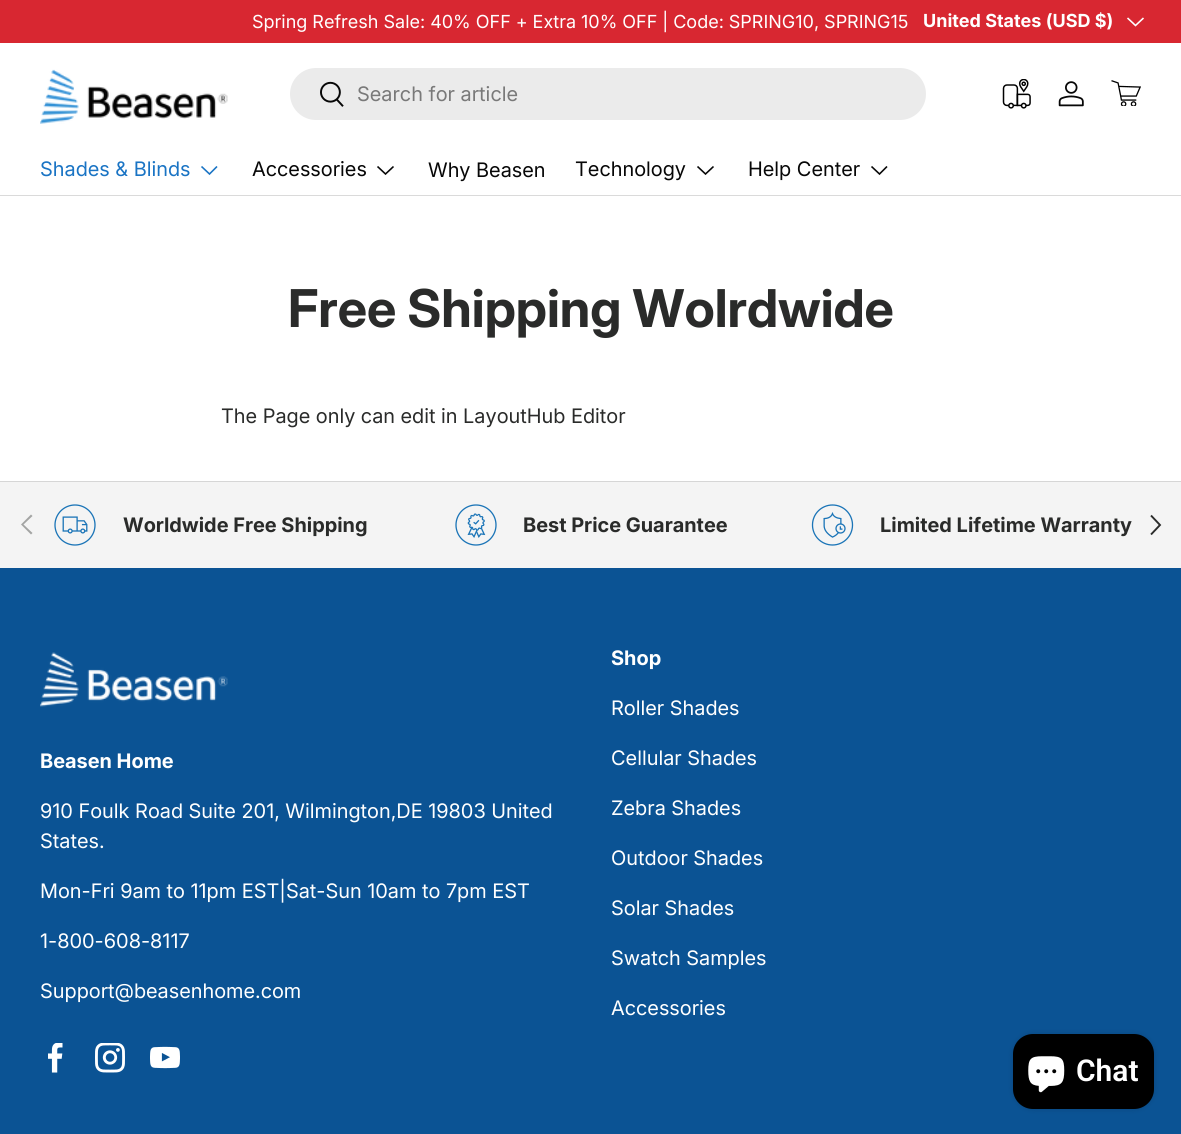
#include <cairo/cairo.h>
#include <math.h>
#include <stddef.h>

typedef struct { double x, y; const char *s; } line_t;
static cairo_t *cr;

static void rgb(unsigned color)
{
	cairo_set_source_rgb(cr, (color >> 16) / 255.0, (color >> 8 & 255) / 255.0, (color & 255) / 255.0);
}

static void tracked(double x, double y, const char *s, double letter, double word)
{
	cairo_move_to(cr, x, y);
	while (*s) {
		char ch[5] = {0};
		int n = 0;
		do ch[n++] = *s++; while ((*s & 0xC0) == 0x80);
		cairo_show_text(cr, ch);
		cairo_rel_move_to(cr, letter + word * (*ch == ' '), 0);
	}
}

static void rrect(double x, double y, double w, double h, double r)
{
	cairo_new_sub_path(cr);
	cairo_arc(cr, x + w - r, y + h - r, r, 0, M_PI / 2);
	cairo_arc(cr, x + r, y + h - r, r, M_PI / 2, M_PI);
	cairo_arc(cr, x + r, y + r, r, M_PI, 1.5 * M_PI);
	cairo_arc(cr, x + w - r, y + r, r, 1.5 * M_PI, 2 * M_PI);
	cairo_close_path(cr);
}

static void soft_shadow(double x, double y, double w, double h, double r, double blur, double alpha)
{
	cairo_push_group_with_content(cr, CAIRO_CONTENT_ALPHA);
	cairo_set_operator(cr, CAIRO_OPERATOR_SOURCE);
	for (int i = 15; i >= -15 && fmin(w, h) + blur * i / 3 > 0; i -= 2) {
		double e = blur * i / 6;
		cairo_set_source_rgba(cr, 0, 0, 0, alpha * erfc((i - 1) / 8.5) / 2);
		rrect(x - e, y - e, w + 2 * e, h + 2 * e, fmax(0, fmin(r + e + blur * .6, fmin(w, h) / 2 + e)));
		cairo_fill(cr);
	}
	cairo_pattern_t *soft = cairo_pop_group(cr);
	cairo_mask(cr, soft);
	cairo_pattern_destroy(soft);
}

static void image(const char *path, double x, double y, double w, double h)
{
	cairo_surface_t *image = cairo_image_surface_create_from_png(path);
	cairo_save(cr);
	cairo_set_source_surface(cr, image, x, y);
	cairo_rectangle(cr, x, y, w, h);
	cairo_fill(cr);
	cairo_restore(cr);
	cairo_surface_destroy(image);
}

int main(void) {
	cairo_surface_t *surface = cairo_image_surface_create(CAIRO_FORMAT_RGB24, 1181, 1134);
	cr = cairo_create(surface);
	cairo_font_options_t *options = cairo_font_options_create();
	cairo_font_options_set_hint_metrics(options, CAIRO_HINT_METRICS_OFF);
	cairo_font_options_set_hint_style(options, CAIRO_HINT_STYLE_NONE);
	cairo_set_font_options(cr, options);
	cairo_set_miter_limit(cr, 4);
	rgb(0xffffff);
	cairo_paint(cr);
	rgb(0xd82731);
	cairo_rectangle(cr, 0, 0, 1181, 43);
	cairo_fill(cr);
	cairo_new_path(cr);
	cairo_move_to(cr, 1143.5, 18);
	cairo_line_to(cr, 1135.5, 25.5);
	cairo_line_to(cr, 1127.5, 18);
	rgb(0xffffff);
	cairo_set_line_width(cr, 1.6);
	cairo_stroke(cr);
	rgb(0xdadada);
	cairo_rectangle(cr, 0, 195, 1181, 1);
	cairo_fill(cr);
	image("img/1.png", 40, 69, 188, 55);
	rgb(0xebebeb);
	rrect(290, 68, 636, 52, 26);
	cairo_fill(cr);
	image("img/2.png", 320, 81, 24, 26);
	image("img/3.png", 1002, 79, 29, 30);
	image("img/4.png", 1058, 81, 26, 26);
	image("img/5.png", 1111, 80, 30, 26);
	cairo_new_path(cr);
	cairo_move_to(cr, 217, 166.5);
	cairo_line_to(cr, 209.5, 174);
	cairo_line_to(cr, 201.5, 166.5);
	rgb(0x1a74c4);
	cairo_stroke(cr);
	cairo_new_path(cr);
	cairo_move_to(cr, 393.5, 166.5);
	cairo_line_to(cr, 385.5, 174);
	cairo_line_to(cr, 377.5, 166.5);
	rgb(0x070707);
	cairo_stroke(cr);
	cairo_new_path(cr);
	cairo_move_to(cr, 713.5, 166.5);
	cairo_line_to(cr, 705.5, 174);
	cairo_line_to(cr, 697.5, 166.5);
	cairo_stroke(cr);
	cairo_new_path(cr);
	cairo_move_to(cr, 887, 166.5);
	cairo_line_to(cr, 879.5, 174);
	cairo_line_to(cr, 871.5, 166.5);
	cairo_stroke(cr);
	rgb(0xf4f4f4);
	cairo_rectangle(cr, 0, 482, 1181, 86);
	cairo_fill(cr);
	rgb(0xd6d6d6);
	cairo_rectangle(cr, 0, 481, 1181, 1);
	cairo_fill(cr);
	rgb(0xa3a4a3);
	cairo_new_path(cr);
	cairo_move_to(cr, 21, 524.5);
	cairo_line_to(cr, 31, 514.5);
	cairo_line_to(cr, 32.5, 516);
	cairo_line_to(cr, 23.5, 524.5);
	cairo_line_to(cr, 32.5, 533);
	cairo_line_to(cr, 31, 534.5);
	cairo_close_path(cr);
	cairo_fill(cr);
	cairo_new_path(cr);
	cairo_move_to(cr, 1151, 515.5);
	cairo_line_to(cr, 1160, 525);
	cairo_line_to(cr, 1151, 534.5);
	rgb(0x2a2b2a);
	cairo_set_line_width(cr, 1.9);
	cairo_stroke(cr);
	image("img/6.png", 54, 504, 42, 42);
	image("img/7.png", 455, 504, 42, 42);
	image("img/8.png", 811, 504, 43, 42);
	rgb(0x0b5394);
	cairo_rectangle(cr, 0, 568, 1181, 566);
	cairo_fill(cr);
	image("img/9.png", 40, 652, 188, 55);
	image("img/10.png", 48, 1043, 15, 30);
	image("img/11.png", 95, 1043, 30, 30);
	image("img/12.png", 150, 1046, 30, 23);
	rgb(0x000000);
	soft_shadow(1013, 1034, 141, 75, 20, 3, 0.15);
	rgb(0x000000);
	rrect(1013, 1034, 141, 75, 20);
	cairo_fill(cr);
	image("img/13.png", 1028, 1056, 37, 37);
	cairo_select_font_face(cr, "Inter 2", CAIRO_FONT_SLANT_NORMAL, CAIRO_FONT_WEIGHT_NORMAL);
	cairo_set_font_size(cr, 18);
	rgb(0xffffff);
	tracked(252, 28, "Spring Refresh Sale: 40% OFF + Extra 10% OFF | Code: SPRING10, SPRING15", 0, -0.1);
	cairo_select_font_face(cr, "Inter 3", CAIRO_FONT_SLANT_NORMAL, CAIRO_FONT_WEIGHT_BOLD);
	cairo_move_to(cr, 923, 27);
	cairo_show_text(cr, "United States (USD $)");
	cairo_select_font_face(cr, "Inter", CAIRO_FONT_SLANT_NORMAL, CAIRO_FONT_WEIGHT_NORMAL);
	cairo_set_font_size(cr, 20);
	rgb(0x797979);
	cairo_move_to(cr, 357, 101);
	cairo_show_text(cr, "Search for article");
	rgb(0x1a74c4);
	cairo_move_to(cr, 40, 176);
	cairo_show_text(cr, "Shades & Blinds");
	rgb(0x070707);
	{
		static const line_t items[] = {
			{252, 176, "Accessories"},
			{428, 177, "Why Beasen"},
			{575, 176, "Technology"},
			{748, 176, "Help Center"},
		};
		for (size_t i = 0; i < sizeof items / sizeof *items; i++) {
			cairo_move_to(cr, items[i].x, items[i].y);
			cairo_show_text(cr, items[i].s);
		}
	}
	cairo_select_font_face(cr, "Inter", CAIRO_FONT_SLANT_NORMAL, CAIRO_FONT_WEIGHT_BOLD);
	cairo_set_font_size(cr, 52.1);
	rgb(0x2a2b2a);
	cairo_move_to(cr, 288, 327);
	cairo_show_text(cr, "Free Shipping Wolrdwide");
	cairo_select_font_face(cr, "Inter", CAIRO_FONT_SLANT_NORMAL, CAIRO_FONT_WEIGHT_NORMAL);
	cairo_set_font_size(cr, 20);
	cairo_move_to(cr, 221, 423);
	cairo_show_text(cr, "The Page only can edit in LayoutHub Editor");
	cairo_select_font_face(cr, "Inter 2", CAIRO_FONT_SLANT_NORMAL, CAIRO_FONT_WEIGHT_BOLD);
	{
		static const line_t items[] = {
			{123, 532, "Worldwide Free Shipping"},
			{523, 532, "Best Price Guarantee"},
			{880, 532, "Limited Lifetime Warranty"},
		};
		for (size_t i = 0; i < sizeof items / sizeof *items; i++) {
			cairo_move_to(cr, items[i].x, items[i].y);
			cairo_show_text(cr, items[i].s);
		}
	}
	rgb(0xffffff);
	cairo_move_to(cr, 40, 768);
	cairo_show_text(cr, "Beasen Home");
	cairo_select_font_face(cr, "Inter", CAIRO_FONT_SLANT_NORMAL, CAIRO_FONT_WEIGHT_NORMAL);
	{
		static const line_t items[] = {
			{40, 818, "910 Foulk Road Suite 201, Wilmington,DE 19803 United"},
			{40, 848, "States."},
			{40, 898, "Mon-Fri 9am to 11pm EST|Sat-Sun 10am to 7pm EST"},
			{40, 948, "1-800-608-8117"},
			{40, 998, "Support@beasenhome.com"},
		};
		for (size_t i = 0; i < sizeof items / sizeof *items; i++) {
			cairo_move_to(cr, items[i].x, items[i].y);
			cairo_show_text(cr, items[i].s);
		}
	}
	cairo_select_font_face(cr, "Inter 2", CAIRO_FONT_SLANT_NORMAL, CAIRO_FONT_WEIGHT_BOLD);
	cairo_move_to(cr, 611, 665);
	cairo_show_text(cr, "Shop");
	cairo_select_font_face(cr, "Inter", CAIRO_FONT_SLANT_NORMAL, CAIRO_FONT_WEIGHT_NORMAL);
	{
		static const line_t items[] = {
			{611, 715, "Roller Shades"},
			{611, 765, "Cellular Shades"},
			{611, 815, "Zebra Shades"},
			{611, 865, "Outdoor Shades"},
			{611, 915, "Solar Shades"},
			{611, 965, "Swatch Samples"},
			{611, 1015, "Accessories"},
		};
		for (size_t i = 0; i < sizeof items / sizeof *items; i++) {
			cairo_move_to(cr, items[i].x, items[i].y);
			cairo_show_text(cr, items[i].s);
		}
	}
	cairo_select_font_face(cr, "Roboto SemiBold", CAIRO_FONT_SLANT_NORMAL, CAIRO_FONT_WEIGHT_NORMAL);
	cairo_set_font_size(cr, 30);
	cairo_move_to(cr, 1076, 1081);
	cairo_show_text(cr, "Chat");
	cairo_surface_write_to_png(surface, "page.png");
	cairo_font_options_destroy(options);
	cairo_destroy(cr);
	cairo_surface_destroy(surface);
	return 0;
}
